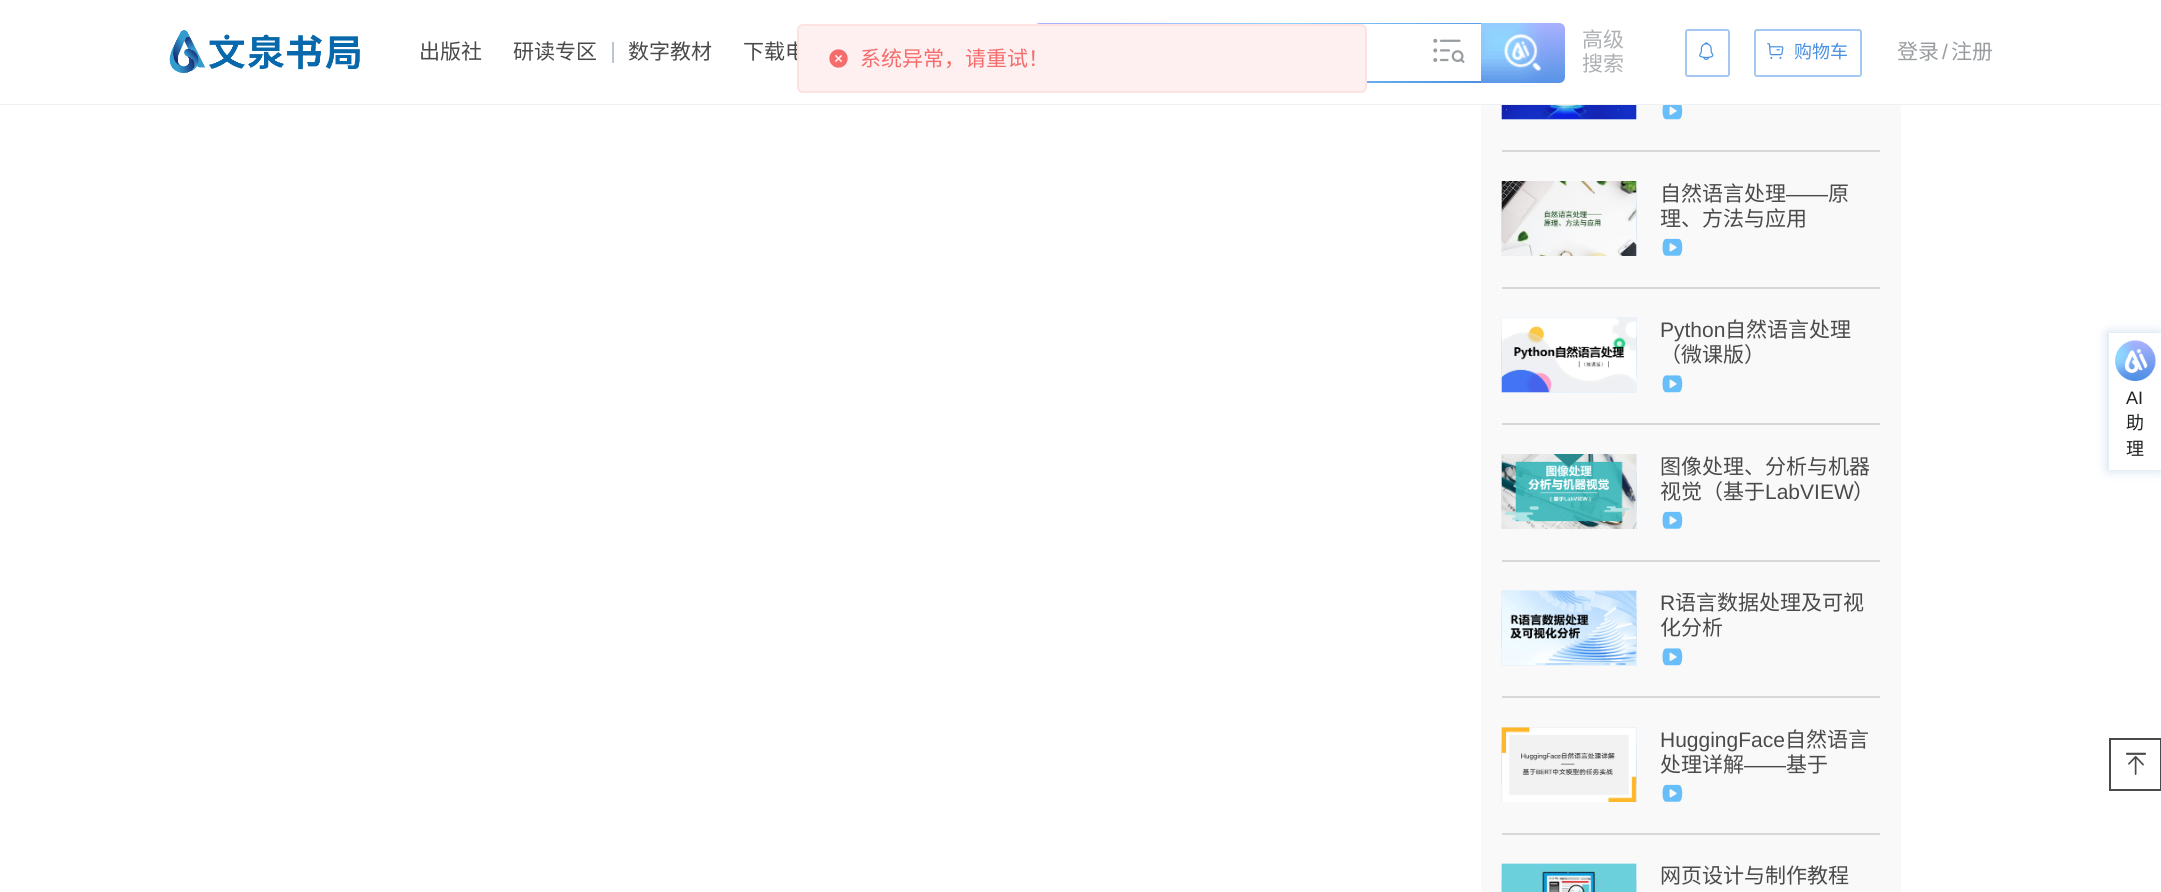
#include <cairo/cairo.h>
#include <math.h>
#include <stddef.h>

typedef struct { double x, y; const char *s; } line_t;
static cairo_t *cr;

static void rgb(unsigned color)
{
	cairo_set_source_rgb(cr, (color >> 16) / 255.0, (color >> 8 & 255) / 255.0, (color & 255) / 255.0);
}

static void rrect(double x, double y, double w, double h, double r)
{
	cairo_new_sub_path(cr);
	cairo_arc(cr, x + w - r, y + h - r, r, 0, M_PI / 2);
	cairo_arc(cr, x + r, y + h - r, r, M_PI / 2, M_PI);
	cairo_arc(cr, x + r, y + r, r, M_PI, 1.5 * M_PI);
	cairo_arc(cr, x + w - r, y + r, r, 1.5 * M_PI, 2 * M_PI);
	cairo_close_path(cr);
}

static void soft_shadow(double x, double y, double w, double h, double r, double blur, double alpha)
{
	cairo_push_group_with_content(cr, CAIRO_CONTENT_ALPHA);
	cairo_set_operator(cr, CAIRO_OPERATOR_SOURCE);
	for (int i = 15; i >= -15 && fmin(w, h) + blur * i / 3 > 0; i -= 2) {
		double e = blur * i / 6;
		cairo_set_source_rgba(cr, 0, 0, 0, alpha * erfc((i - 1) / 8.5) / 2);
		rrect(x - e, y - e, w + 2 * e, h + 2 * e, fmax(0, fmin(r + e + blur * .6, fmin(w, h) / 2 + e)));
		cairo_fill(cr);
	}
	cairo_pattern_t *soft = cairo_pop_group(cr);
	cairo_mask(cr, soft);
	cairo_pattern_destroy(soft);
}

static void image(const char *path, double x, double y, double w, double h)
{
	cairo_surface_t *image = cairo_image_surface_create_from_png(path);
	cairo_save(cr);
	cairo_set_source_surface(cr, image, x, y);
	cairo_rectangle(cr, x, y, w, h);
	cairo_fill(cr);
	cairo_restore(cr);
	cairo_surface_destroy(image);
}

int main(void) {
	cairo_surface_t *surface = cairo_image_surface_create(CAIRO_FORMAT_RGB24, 2161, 892);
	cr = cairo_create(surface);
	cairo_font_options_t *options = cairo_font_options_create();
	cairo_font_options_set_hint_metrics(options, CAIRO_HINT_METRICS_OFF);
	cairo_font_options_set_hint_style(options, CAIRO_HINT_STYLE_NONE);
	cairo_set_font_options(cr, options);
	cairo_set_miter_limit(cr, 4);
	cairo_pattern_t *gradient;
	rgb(0xffffff);
	cairo_paint(cr);
	rgb(0xeef0f2);
	cairo_new_path(cr);
	cairo_move_to(cr, 0, 104);
	cairo_line_to(cr, 0, 105);
	cairo_line_to(cr, 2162, 105);
	cairo_line_to(cr, 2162, 2);
	cairo_line_to(cr, 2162, 104);
	cairo_close_path(cr);
	cairo_fill(cr);
	image("img/1.png", 169, 30, 191, 43);
	rgb(0xbbc5cf);
	cairo_rectangle(cr, 612, 42, 2, 21);
	cairo_fill(cr);
	gradient = cairo_pattern_create_linear(1130, -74, 1384, 179);
	cairo_pattern_add_color_stop_rgba(gradient, 0, 0.659, 0.69, 0.996, 1);
	cairo_pattern_add_color_stop_rgba(gradient, 0.5, 0.557, 0.816, 0.996, 1);
	cairo_pattern_add_color_stop_rgba(gradient, 1, 0.298, 0.557, 0.886, 1);
	cairo_set_source(cr, gradient);
	cairo_pattern_destroy(gradient);
	cairo_new_path(cr);
	cairo_move_to(cr, 1040, 23);
	cairo_line_to(cr, 1481, 23);
	cairo_line_to(cr, 1481, 83);
	cairo_line_to(cr, 1040, 83);
	cairo_curve_to(cr, 1036.5, 83, 1034, 80.5, 1034, 77);
	cairo_line_to(cr, 1034, 29);
	cairo_curve_to(cr, 1034, 25.5, 1036.5, 23, 1040, 23);
	cairo_close_path(cr);
	cairo_fill(cr);
	rgb(0xffffff);
	cairo_rectangle(cr, 1361, 24, 120, 57);
	cairo_fill(cr);
	gradient = cairo_pattern_create_linear(1523, 22, 1523, 83);
	cairo_pattern_add_color_stop_rgba(gradient, 0, 0.667, 0.694, 1, 1);
	cairo_pattern_add_color_stop_rgba(gradient, 1, 0.341, 0.576, 0.902, 1);
	cairo_set_source(cr, gradient);
	cairo_pattern_destroy(gradient);
	cairo_new_path(cr);
	cairo_move_to(cr, 1481, 23);
	cairo_line_to(cr, 1559, 23);
	cairo_curve_to(cr, 1562.5, 23, 1565, 25.5, 1565, 29);
	cairo_line_to(cr, 1565, 77);
	cairo_curve_to(cr, 1565, 80.5, 1562.5, 83, 1559, 83);
	cairo_line_to(cr, 1481, 83);
	cairo_close_path(cr);
	cairo_fill(cr);
	cairo_save(cr);
	cairo_rectangle(cr, 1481, 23, 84, 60);
	cairo_clip(cr);
	rgb(0x8ed6ff);
	soft_shadow(1475, 17, 51, 48, 0, 12, 1);
	cairo_restore(cr);
	image("img/2.png", 1504, 34, 37, 37);
	image("img/3.png", 1433, 38, 32, 25);
	rrect(1686, 30, 43, 46, 2);
	rgb(0xa5c8f1);
	cairo_stroke(cr);
	image("img/4.png", 1699, 42, 15, 18);
	rrect(1755, 30, 106, 46, 2);
	cairo_stroke(cr);
	image("img/5.png", 1767, 43, 17, 16);
	rgb(0xf9f9f9);
	cairo_rectangle(cr, 1481, 105, 420, 787);
	cairo_fill(cr);
	image("img/6.png", 1501, 105, 136, 15);
	image("img/7.png", 1501, 105, 136, 15);
	image("img/8.png", 1662, 105, 21, 15);
	rgb(0xd8d8d8);
	cairo_rectangle(cr, 1502, 150, 378, 2);
	cairo_fill(cr);
	image("img/9.png", 1501, 181, 136, 75);
	image("img/10.png", 1501, 181, 136, 75);
	image("img/11.png", 1662, 238, 21, 18);
	cairo_rectangle(cr, 1502, 287, 378, 2);
	cairo_fill(cr);
	image("img/12.png", 1501, 317, 136, 76);
	image("img/13.png", 1501, 317, 136, 76);
	image("img/14.png", 1662, 375, 21, 18);
	cairo_rectangle(cr, 1502, 423, 378, 2);
	cairo_fill(cr);
	image("img/9.png", 1501, 454, 136, 75);
	image("img/15.png", 1501, 454, 136, 75);
	image("img/11.png", 1662, 511, 21, 18);
	cairo_rectangle(cr, 1502, 560, 378, 2);
	cairo_fill(cr);
	image("img/12.png", 1501, 590, 136, 76);
	image("img/16.png", 1501, 590, 136, 76);
	image("img/14.png", 1662, 648, 21, 18);
	cairo_rectangle(cr, 1502, 696, 378, 2);
	cairo_fill(cr);
	image("img/9.png", 1501, 727, 136, 75);
	image("img/17.png", 1501, 727, 136, 75);
	image("img/11.png", 1662, 784, 21, 18);
	cairo_rectangle(cr, 1502, 833, 378, 2);
	cairo_fill(cr);
	image("img/18.png", 1501, 863, 136, 29);
	image("img/19.png", 1501, 863, 136, 29);
	rgb(0x2061aa);
	soft_shadow(2108, 333, 52, 137, 0, 6, 0.23);
	rgb(0xffffff);
	cairo_rectangle(cr, 2109, 333, 52, 137);
	cairo_fill(cr);
	image("img/20.png", 2115, 340, 41, 41);
	cairo_rectangle(cr, 2110, 739, 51, 51);
	rgb(0x4a4a4a);
	cairo_stroke(cr);
	image("img/21.png", 2126, 752, 20, 23);
	cairo_select_font_face(cr, "Noto Sans CJK SC", CAIRO_FONT_SLANT_NORMAL, CAIRO_FONT_WEIGHT_NORMAL);
	cairo_set_font_size(cr, 21);
	{
		static const line_t items[] = {
			{419, 59, "出版社"},
			{513, 59, "研读专区"},
			{628, 59, "数字教材"},
			{743, 59, "下载电"},
		};
		for (size_t i = 0; i < sizeof items / sizeof *items; i++) {
			cairo_move_to(cr, items[i].x, items[i].y);
			cairo_show_text(cr, items[i].s);
		}
	}
	rgb(0xadb1b3);
	cairo_move_to(cr, 1582, 47);
	cairo_show_text(cr, "高级");
	cairo_move_to(cr, 1582, 71);
	cairo_show_text(cr, "搜索");
	cairo_set_font_size(cr, 18);
	rgb(0x4a90e2);
	cairo_move_to(cr, 1794, 58);
	cairo_show_text(cr, "购物车");
	cairo_set_font_size(cr, 21);
	rgb(0x999da0);
	cairo_move_to(cr, 1897, 59);
	cairo_show_text(cr, "登录");
	cairo_select_font_face(cr, "Liberation Sans", CAIRO_FONT_SLANT_NORMAL, CAIRO_FONT_WEIGHT_NORMAL);
	cairo_move_to(cr, 1942, 59);
	cairo_show_text(cr, "/");
	cairo_select_font_face(cr, "Noto Sans CJK SC", CAIRO_FONT_SLANT_NORMAL, CAIRO_FONT_WEIGHT_NORMAL);
	cairo_move_to(cr, 1951, 59);
	cairo_show_text(cr, "注册");
	rgb(0x4a4a4a);
	cairo_move_to(cr, 1660, 201);
	cairo_show_text(cr, "自然语言处理");
	cairo_select_font_face(cr, "Liberation Sans", CAIRO_FONT_SLANT_NORMAL, CAIRO_FONT_WEIGHT_NORMAL);
	cairo_move_to(cr, 1786, 201);
	cairo_show_text(cr, "——");
	cairo_select_font_face(cr, "Noto Sans CJK SC", CAIRO_FONT_SLANT_NORMAL, CAIRO_FONT_WEIGHT_NORMAL);
	cairo_move_to(cr, 1828, 201);
	cairo_show_text(cr, "原");
	cairo_save(cr);
	cairo_rectangle(cr, 1661, 182, 219, 49);
	cairo_clip(cr);
	cairo_move_to(cr, 1660, 226);
	cairo_show_text(cr, "理、方法与应用");
	cairo_restore(cr);
	cairo_select_font_face(cr, "Liberation Sans", CAIRO_FONT_SLANT_NORMAL, CAIRO_FONT_WEIGHT_NORMAL);
	cairo_move_to(cr, 1660, 337);
	cairo_show_text(cr, "Python");
	cairo_select_font_face(cr, "Noto Sans CJK SC", CAIRO_FONT_SLANT_NORMAL, CAIRO_FONT_WEIGHT_NORMAL);
	{
		static const line_t items[] = {
			{1725, 337, "自然语言处理"},
			{1660, 362, "（微课版）"},
			{1660, 474, "图像处理、分析与机器"},
			{1660, 499, "视觉（基于"},
		};
		for (size_t i = 0; i < sizeof items / sizeof *items; i++) {
			cairo_move_to(cr, items[i].x, items[i].y);
			cairo_show_text(cr, items[i].s);
		}
	}
	cairo_select_font_face(cr, "Liberation Sans", CAIRO_FONT_SLANT_NORMAL, CAIRO_FONT_WEIGHT_NORMAL);
	cairo_move_to(cr, 1765, 499);
	cairo_show_text(cr, "LabVIEW");
	cairo_select_font_face(cr, "Noto Sans CJK SC", CAIRO_FONT_SLANT_NORMAL, CAIRO_FONT_WEIGHT_NORMAL);
	cairo_move_to(cr, 1853, 499);
	cairo_show_text(cr, "）");
	cairo_select_font_face(cr, "Liberation Sans", CAIRO_FONT_SLANT_NORMAL, CAIRO_FONT_WEIGHT_NORMAL);
	cairo_move_to(cr, 1660, 610);
	cairo_show_text(cr, "R");
	cairo_select_font_face(cr, "Noto Sans CJK SC", CAIRO_FONT_SLANT_NORMAL, CAIRO_FONT_WEIGHT_NORMAL);
	cairo_move_to(cr, 1675, 610);
	cairo_show_text(cr, "语言数据处理及可视");
	cairo_move_to(cr, 1660, 635);
	cairo_show_text(cr, "化分析");
	cairo_select_font_face(cr, "Liberation Sans", CAIRO_FONT_SLANT_NORMAL, CAIRO_FONT_WEIGHT_NORMAL);
	cairo_move_to(cr, 1660, 747);
	cairo_show_text(cr, "HuggingFace");
	cairo_select_font_face(cr, "Noto Sans CJK SC", CAIRO_FONT_SLANT_NORMAL, CAIRO_FONT_WEIGHT_NORMAL);
	cairo_move_to(cr, 1785, 747);
	cairo_show_text(cr, "自然语言");
	cairo_move_to(cr, 1660, 772);
	cairo_show_text(cr, "处理详解");
	cairo_select_font_face(cr, "Liberation Sans", CAIRO_FONT_SLANT_NORMAL, CAIRO_FONT_WEIGHT_NORMAL);
	cairo_move_to(cr, 1744, 772);
	cairo_show_text(cr, "——");
	cairo_select_font_face(cr, "Noto Sans CJK SC", CAIRO_FONT_SLANT_NORMAL, CAIRO_FONT_WEIGHT_NORMAL);
	cairo_move_to(cr, 1786, 772);
	cairo_show_text(cr, "基于");
	cairo_move_to(cr, 1660, 883);
	cairo_show_text(cr, "网页设计与制作教程");
	cairo_select_font_face(cr, "Liberation Sans", CAIRO_FONT_SLANT_NORMAL, CAIRO_FONT_WEIGHT_NORMAL);
	cairo_set_font_size(cr, 18);
	rgb(0x212223);
	cairo_move_to(cr, 2126, 404);
	cairo_show_text(cr, "AI");
	cairo_select_font_face(cr, "Noto Sans CJK SC", CAIRO_FONT_SLANT_NORMAL, CAIRO_FONT_WEIGHT_NORMAL);
	cairo_move_to(cr, 2126, 429);
	cairo_show_text(cr, "助");
	cairo_move_to(cr, 2126, 455);
	cairo_show_text(cr, "理");
	rgb(0xfef0f0);
	rrect(798, 25, 568, 67, 5);
	cairo_fill_preserve(cr);
	rgb(0xfde2e2);
	cairo_stroke(cr);
	image("img/22.png", 829, 49, 19, 19);
	cairo_set_font_size(cr, 21);
	rgb(0xf56c6c);
	cairo_move_to(cr, 860, 66);
	cairo_show_text(cr, "系统异常，请重试！");
	cairo_surface_write_to_png(surface, "page.png");
	cairo_font_options_destroy(options);
	cairo_destroy(cr);
	cairo_surface_destroy(surface);
	return 0;
}
